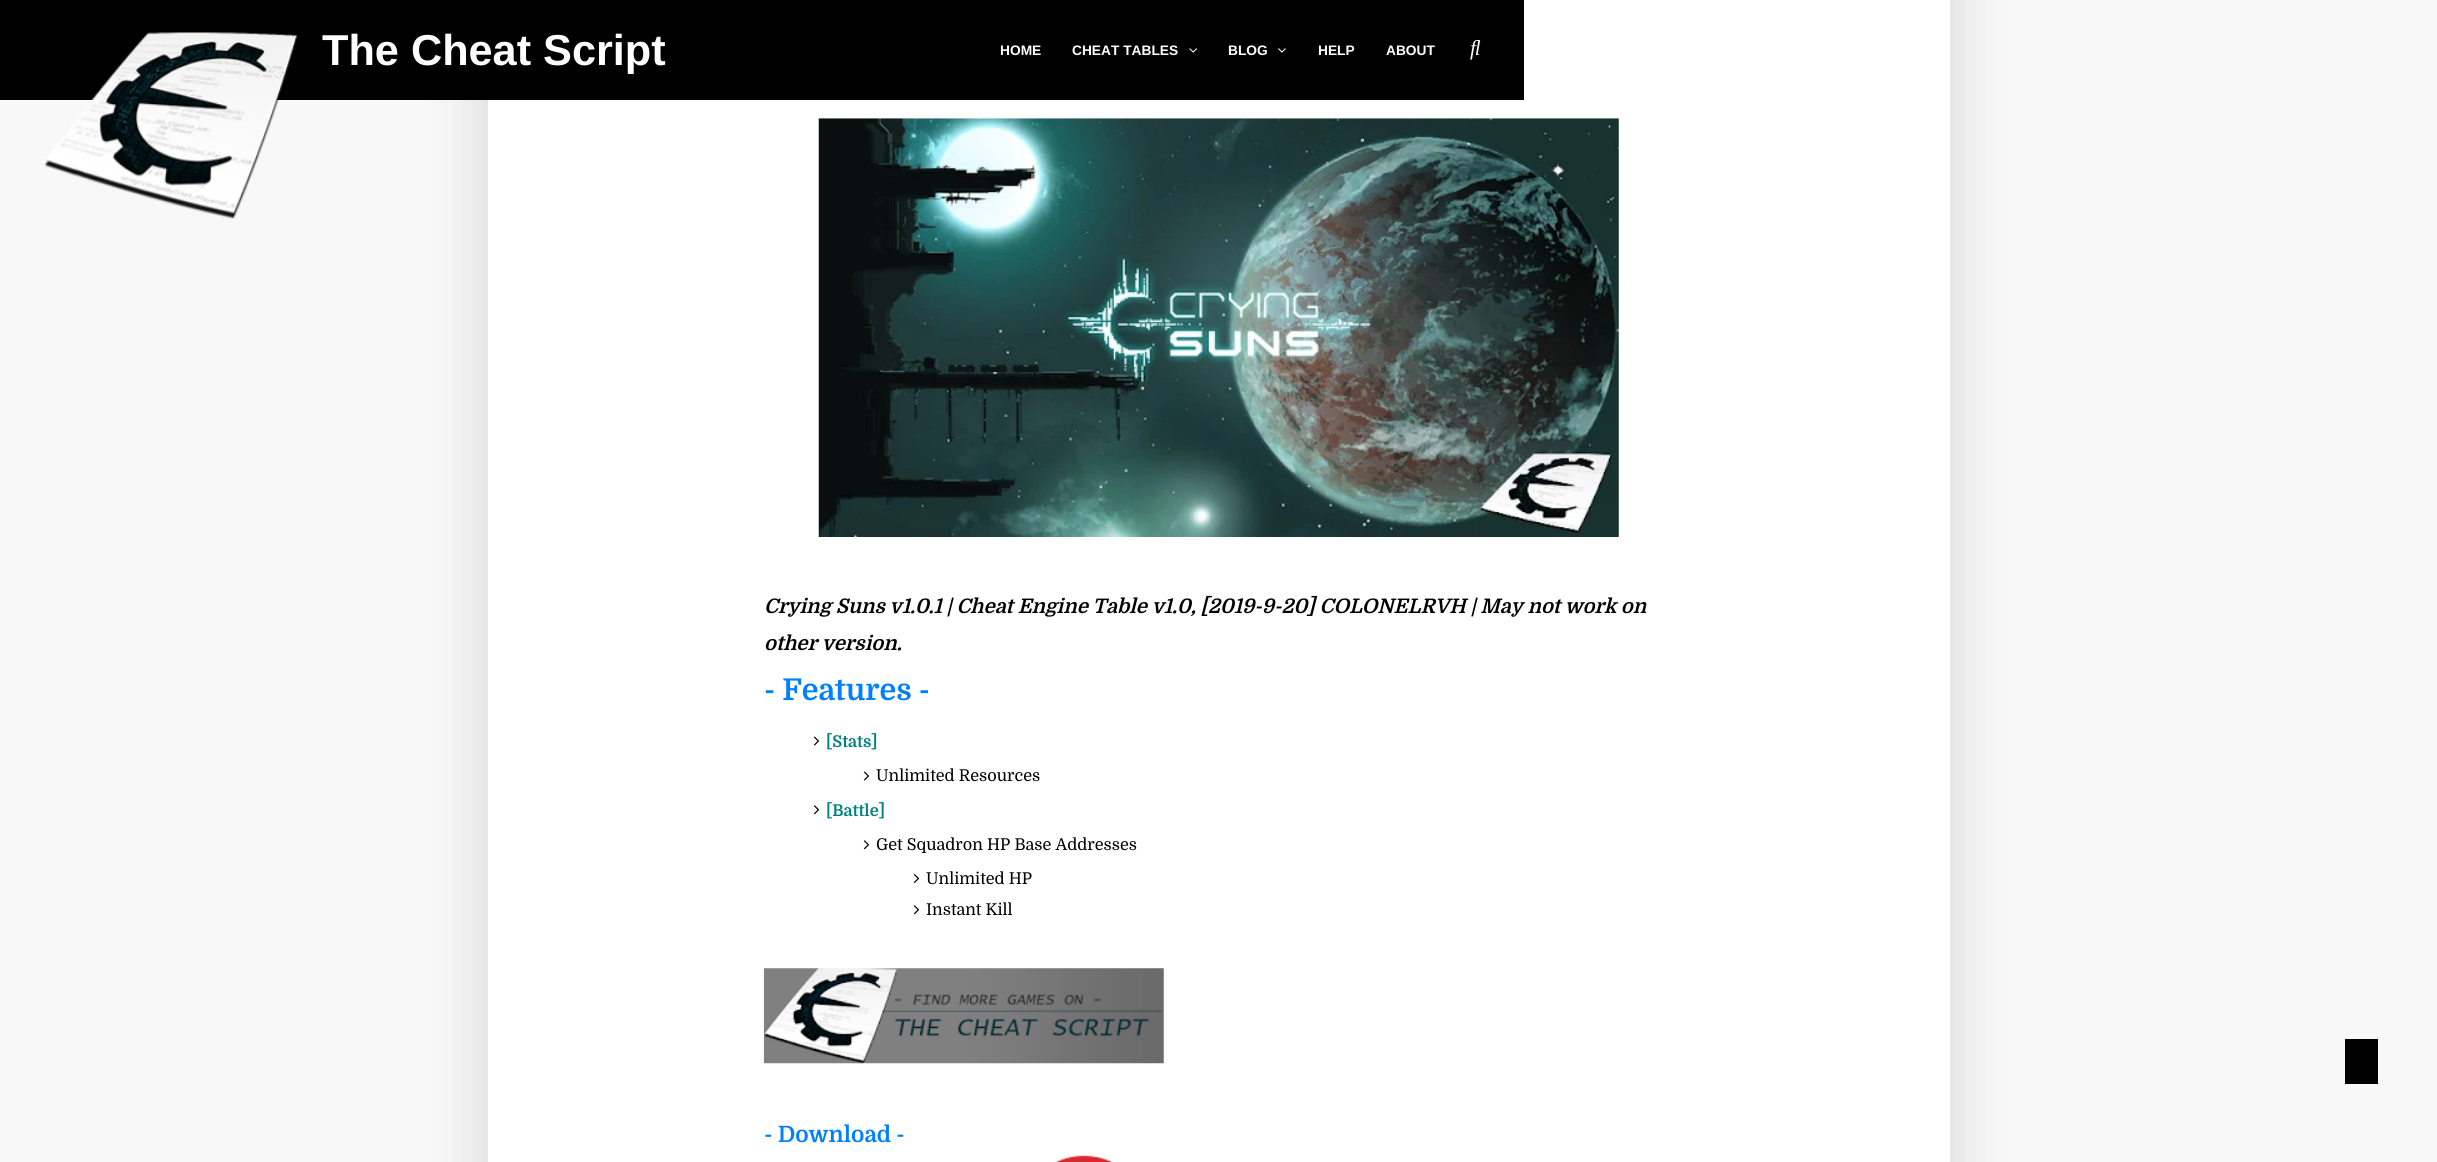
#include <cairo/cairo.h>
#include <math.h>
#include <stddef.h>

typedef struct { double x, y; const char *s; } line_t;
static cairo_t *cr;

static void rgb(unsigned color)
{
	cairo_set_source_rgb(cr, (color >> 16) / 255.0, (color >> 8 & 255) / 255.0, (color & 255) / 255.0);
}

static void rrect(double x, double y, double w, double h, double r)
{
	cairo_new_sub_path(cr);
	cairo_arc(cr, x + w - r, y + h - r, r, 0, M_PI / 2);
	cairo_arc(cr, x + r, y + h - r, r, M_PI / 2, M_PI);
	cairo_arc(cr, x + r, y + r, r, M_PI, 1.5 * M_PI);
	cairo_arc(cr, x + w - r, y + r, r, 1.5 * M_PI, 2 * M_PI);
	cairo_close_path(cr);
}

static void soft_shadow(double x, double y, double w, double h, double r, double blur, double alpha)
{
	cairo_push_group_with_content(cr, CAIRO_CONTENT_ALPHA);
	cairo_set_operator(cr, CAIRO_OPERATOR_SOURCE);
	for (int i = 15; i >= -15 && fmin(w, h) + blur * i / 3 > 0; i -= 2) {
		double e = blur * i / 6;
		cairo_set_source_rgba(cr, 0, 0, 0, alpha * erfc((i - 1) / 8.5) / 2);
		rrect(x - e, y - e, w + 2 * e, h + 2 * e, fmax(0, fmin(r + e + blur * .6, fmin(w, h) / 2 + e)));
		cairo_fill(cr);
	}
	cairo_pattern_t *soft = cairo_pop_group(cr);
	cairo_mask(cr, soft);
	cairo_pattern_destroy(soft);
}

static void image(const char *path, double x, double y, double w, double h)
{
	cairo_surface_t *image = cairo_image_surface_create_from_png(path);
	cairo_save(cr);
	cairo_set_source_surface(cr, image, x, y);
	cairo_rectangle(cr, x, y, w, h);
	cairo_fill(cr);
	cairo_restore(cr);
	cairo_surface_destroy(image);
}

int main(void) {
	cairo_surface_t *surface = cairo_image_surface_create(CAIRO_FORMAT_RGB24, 2437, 1162);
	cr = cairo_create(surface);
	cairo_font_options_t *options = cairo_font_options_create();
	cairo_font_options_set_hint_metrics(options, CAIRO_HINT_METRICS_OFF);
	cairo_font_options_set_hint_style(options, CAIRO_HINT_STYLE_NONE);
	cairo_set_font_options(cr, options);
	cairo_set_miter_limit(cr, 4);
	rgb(0xf8f8f8);
	cairo_paint(cr);
	rgb(0x010101);
	soft_shadow(488, -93, 1462, 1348, 0, 31, 0.15);
	rgb(0xffffff);
	cairo_rectangle(cr, 488, 0, 1462, 1162);
	cairo_fill(cr);
	rgb(0x000000);
	cairo_rectangle(cr, 0, 0, 1524, 100);
	cairo_fill(cr);
	image("img/1.png", 44, 32, 254, 187);
	image("img/2.png", 1189, 48, 8, 5);
	image("img/3.png", 1278, 48, 8, 5);
	image("img/4.png", 1470, 40, 11, 20);
	image("img/5.png", 818, 118, 801, 419);
	image("img/6.png", 813, 736, 7, 10);
	image("img/6.png", 863, 771, 7, 10);
	image("img/7.png", 813, 805, 7, 10);
	image("img/7.png", 863, 840, 7, 10);
	image("img/8.png", 913, 874, 7, 9);
	image("img/7.png", 913, 905, 7, 10);
	image("img/9.png", 763, 968, 401, 96);
	image("img/10.png", 1055, 1155, 58, 7);
	cairo_rectangle(cr, 2345, 1039, 33, 45);
	cairo_fill(cr);
	cairo_select_font_face(cr, "Liberation Sans", CAIRO_FONT_SLANT_NORMAL, CAIRO_FONT_WEIGHT_BOLD);
	cairo_set_font_size(cr, 43.25);
	rgb(0xffffff);
	cairo_move_to(cr, 322, 65);
	cairo_show_text(cr, "The Cheat Script");
	cairo_set_font_size(cr, 13.75);
	{
		static const line_t items[] = {
			{1000, 55, "HOME"},
			{1072, 55, "CHEAT TABLES"},
			{1228, 55, "BLOG"},
			{1318, 55, "HELP"},
			{1386, 55, "ABOUT"},
		};
		for (size_t i = 0; i < sizeof items / sizeof *items; i++) {
			cairo_move_to(cr, items[i].x, items[i].y);
			cairo_show_text(cr, items[i].s);
		}
	}
	cairo_select_font_face(cr, "Domine", CAIRO_FONT_SLANT_ITALIC, CAIRO_FONT_WEIGHT_BOLD);
	cairo_set_font_size(cr, 20);
	rgb(0x000000);
	cairo_move_to(cr, 764, 613);
	cairo_show_text(cr, "Crying Suns v1.0.1 | Cheat Engine Table v1.0, [2019-9-20] COLONELRVH | May not work on");
	cairo_move_to(cr, 764, 650);
	cairo_show_text(cr, "other version.");
	cairo_select_font_face(cr, "Domine", CAIRO_FONT_SLANT_NORMAL, CAIRO_FONT_WEIGHT_BOLD);
	cairo_set_font_size(cr, 30);
	rgb(0x0080ff);
	cairo_move_to(cr, 764, 700);
	cairo_show_text(cr, "- Features -");
	cairo_set_font_size(cr, 16.25);
	rgb(0x008080);
	cairo_move_to(cr, 826, 747);
	cairo_show_text(cr, "[Stats]");
	cairo_select_font_face(cr, "Domine", CAIRO_FONT_SLANT_NORMAL, CAIRO_FONT_WEIGHT_NORMAL);
	rgb(0x000000);
	cairo_move_to(cr, 876, 781);
	cairo_show_text(cr, "Unlimited Resources");
	cairo_select_font_face(cr, "Domine", CAIRO_FONT_SLANT_NORMAL, CAIRO_FONT_WEIGHT_BOLD);
	rgb(0x008080);
	cairo_move_to(cr, 826, 816);
	cairo_show_text(cr, "[Battle]");
	cairo_select_font_face(cr, "Domine", CAIRO_FONT_SLANT_NORMAL, CAIRO_FONT_WEIGHT_NORMAL);
	rgb(0x000000);
	{
		static const line_t items[] = {
			{876, 850, "Get Squadron HP Base Addresses"},
			{926, 884, "Unlimited HP"},
			{926, 915, "Instant Kill"},
		};
		for (size_t i = 0; i < sizeof items / sizeof *items; i++) {
			cairo_move_to(cr, items[i].x, items[i].y);
			cairo_show_text(cr, items[i].s);
		}
	}
	cairo_select_font_face(cr, "Domine", CAIRO_FONT_SLANT_NORMAL, CAIRO_FONT_WEIGHT_BOLD);
	cairo_set_font_size(cr, 22.5);
	rgb(0x0080ff);
	cairo_move_to(cr, 764, 1142);
	cairo_show_text(cr, "- Download -");
	cairo_surface_write_to_png(surface, "page.png");
	cairo_font_options_destroy(options);
	cairo_destroy(cr);
	cairo_surface_destroy(surface);
	return 0;
}
